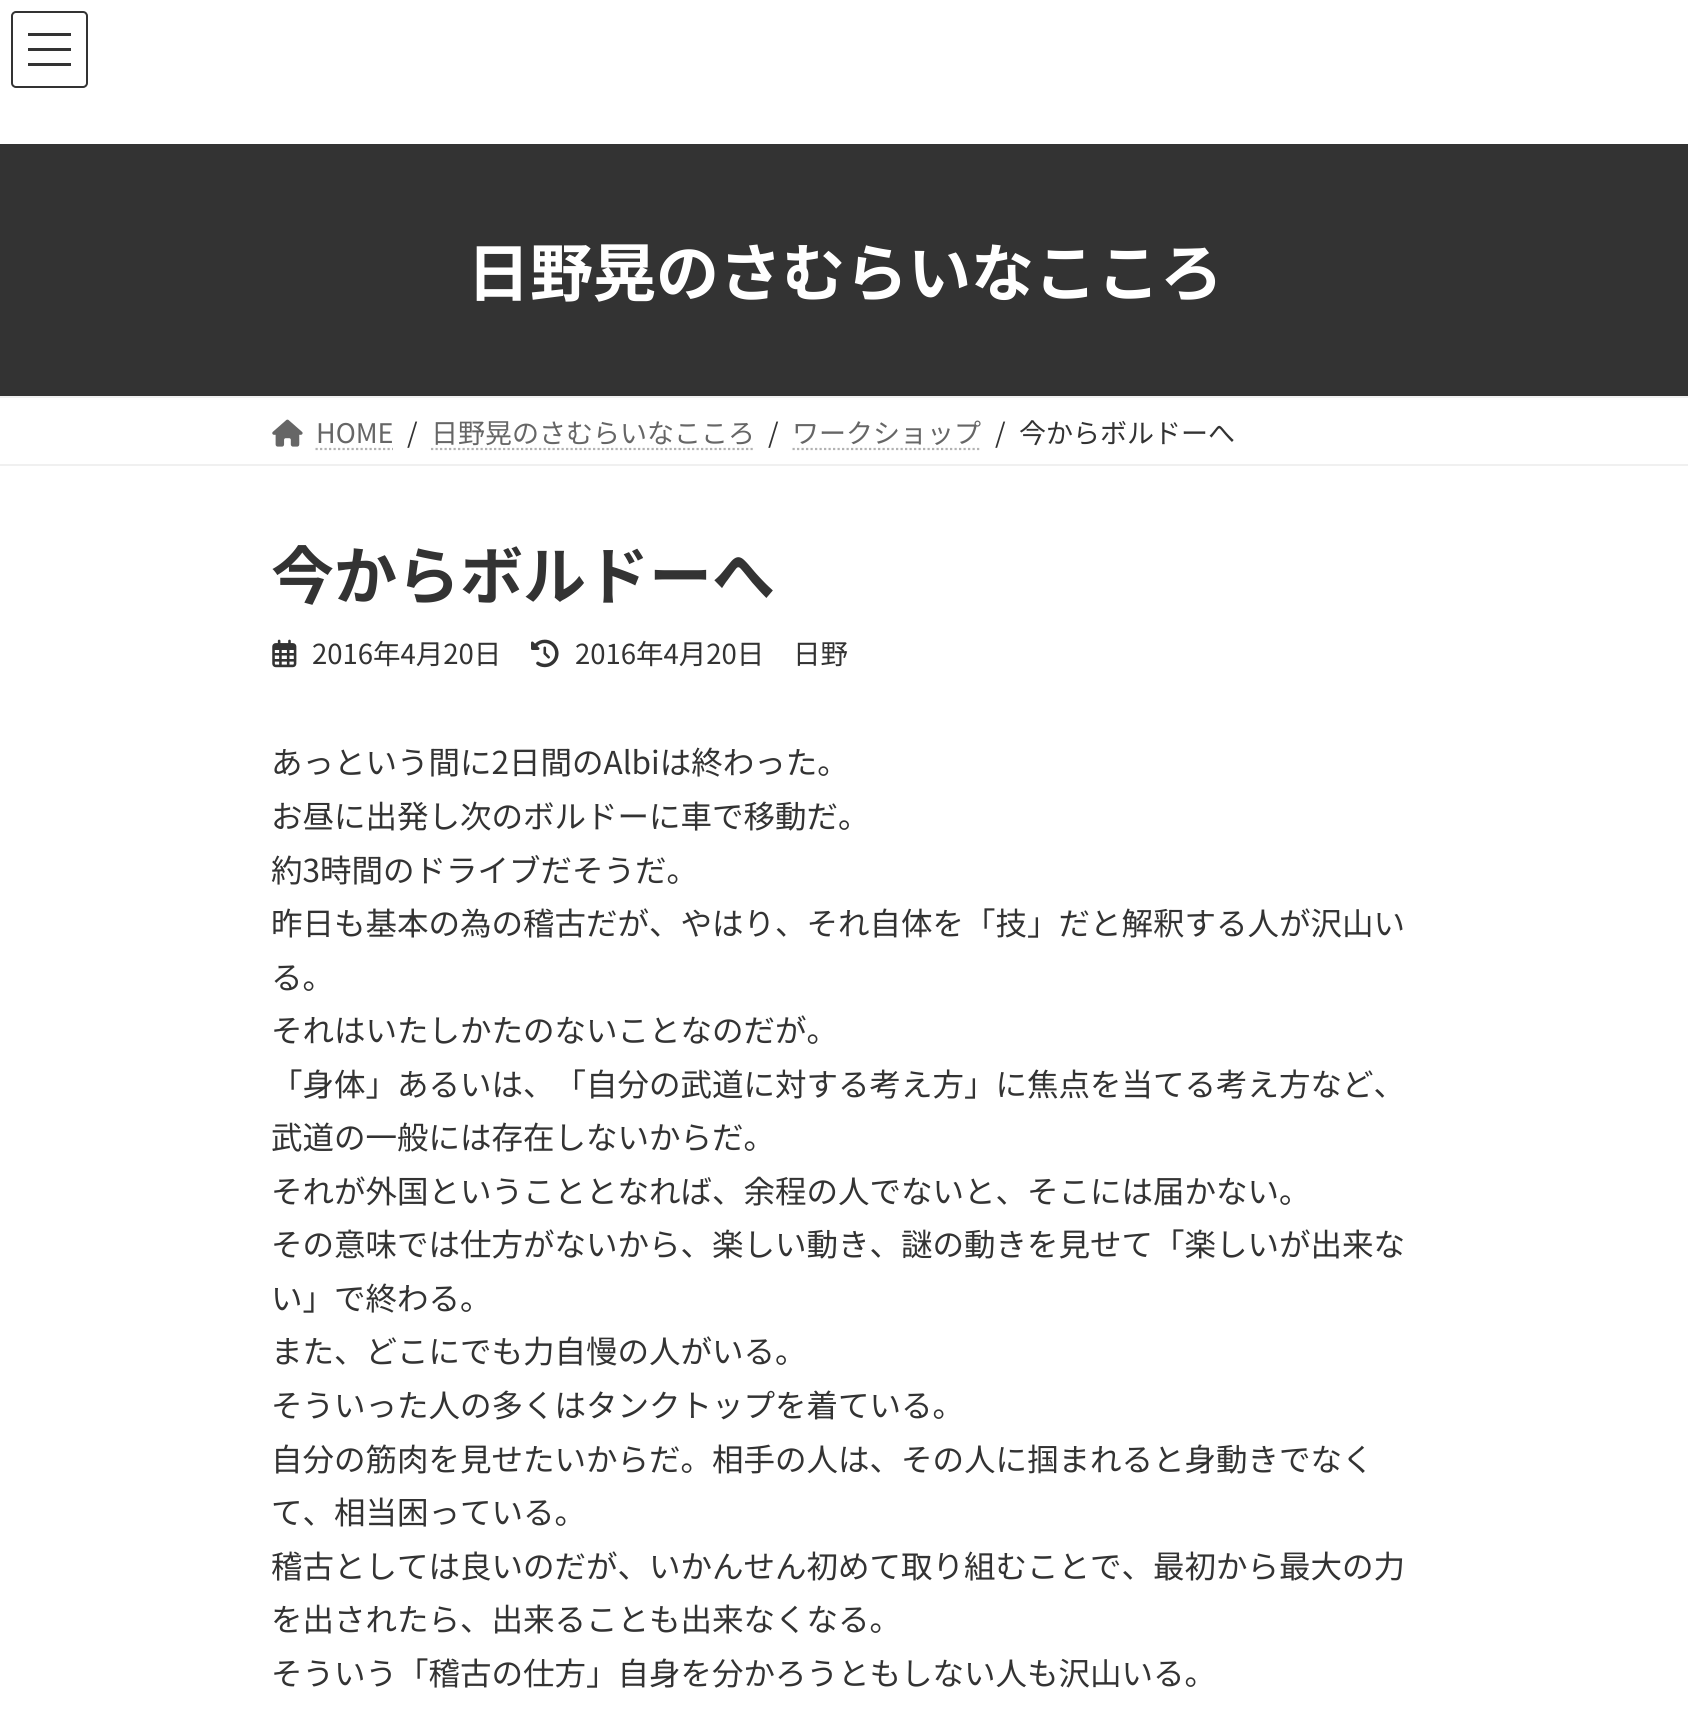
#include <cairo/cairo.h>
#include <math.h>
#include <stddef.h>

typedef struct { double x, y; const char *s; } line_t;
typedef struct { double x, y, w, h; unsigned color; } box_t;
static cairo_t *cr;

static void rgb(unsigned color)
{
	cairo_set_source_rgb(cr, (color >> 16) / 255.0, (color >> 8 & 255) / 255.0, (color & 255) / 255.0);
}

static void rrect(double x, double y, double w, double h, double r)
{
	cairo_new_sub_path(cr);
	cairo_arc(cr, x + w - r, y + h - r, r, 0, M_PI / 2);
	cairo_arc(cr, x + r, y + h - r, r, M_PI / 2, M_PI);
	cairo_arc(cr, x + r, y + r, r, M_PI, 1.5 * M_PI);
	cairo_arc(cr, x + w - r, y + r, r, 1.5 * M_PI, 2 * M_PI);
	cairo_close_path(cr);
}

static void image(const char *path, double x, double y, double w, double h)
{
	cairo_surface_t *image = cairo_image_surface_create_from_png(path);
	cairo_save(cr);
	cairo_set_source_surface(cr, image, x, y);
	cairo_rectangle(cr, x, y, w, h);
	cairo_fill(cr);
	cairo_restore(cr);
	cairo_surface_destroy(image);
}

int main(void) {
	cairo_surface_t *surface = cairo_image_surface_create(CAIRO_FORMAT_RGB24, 1688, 1716);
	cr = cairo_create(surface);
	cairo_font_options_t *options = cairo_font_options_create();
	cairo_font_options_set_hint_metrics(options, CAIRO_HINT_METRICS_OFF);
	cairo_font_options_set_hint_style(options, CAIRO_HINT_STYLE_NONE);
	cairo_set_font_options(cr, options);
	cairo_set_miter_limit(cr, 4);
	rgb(0xffffff);
	cairo_paint(cr);
	{
		static const box_t items[] = {
			{28, 33, 43, 3, 0x333333},
			{28, 48, 43, 3, 0x333333},
			{28, 63, 43, 3, 0x333333},
		};
		for (size_t i = 0; i < sizeof items / sizeof *items; i++) {
			rgb(items[i].color);
			cairo_rectangle(cr, items[i].x, items[i].y, items[i].w, items[i].h);
			cairo_fill(cr);
		}
	}
	rrect(12, 12, 75, 75, 4);
	cairo_stroke(cr);
	{
		static const box_t items[] = {
			{0, 144, 1688, 252, 0x333333},
			{0, 396, 1688, 2, 0xf0f0f0},
			{0, 464, 1688, 2, 0xf0f0f0},
		};
		for (size_t i = 0; i < sizeof items / sizeof *items; i++) {
			rgb(items[i].color);
			cairo_rectangle(cr, items[i].x, items[i].y, items[i].w, items[i].h);
			cairo_fill(cr);
		}
	}
	image("img/1.png", 272, 419, 31, 28);
	cairo_new_path(cr);
	cairo_move_to(cr, 315.5, 449);
	cairo_line_to(cr, 393, 449);
	rgb(0xb3b3b3);
	cairo_set_line_width(cr, 2.2);
	cairo_set_dash(cr, (double[]){2.25, 2.25}, 2, 0);
	cairo_stroke(cr);
	cairo_new_path(cr);
	cairo_move_to(cr, 431, 449);
	cairo_line_to(cr, 755, 449);
	cairo_stroke(cr);
	cairo_new_path(cr);
	cairo_move_to(cr, 792.5, 449);
	cairo_line_to(cr, 981.5, 449);
	cairo_stroke(cr);
	image("img/2.png", 272, 639, 25, 29);
	image("img/3.png", 531, 639, 28, 29);
	cairo_select_font_face(cr, "Noto Sans JP", CAIRO_FONT_SLANT_NORMAL, CAIRO_FONT_WEIGHT_BOLD);
	cairo_set_font_size(cr, 63);
	rgb(0xffffff);
	cairo_move_to(cr, 467, 296);
	cairo_show_text(cr, "日野晃のさむらいなこころ");
	cairo_select_font_face(cr, "Noto Sans JP", CAIRO_FONT_SLANT_NORMAL, CAIRO_FONT_WEIGHT_NORMAL);
	cairo_set_font_size(cr, 27);
	rgb(0x666666);
	cairo_move_to(cr, 316, 443);
	cairo_show_text(cr, "HOME");
	rgb(0x333333);
	cairo_move_to(cr, 407, 443);
	cairo_show_text(cr, "/");
	rgb(0x666666);
	cairo_move_to(cr, 431, 443);
	cairo_show_text(cr, "日野晃のさむらいなこころ");
	rgb(0x333333);
	cairo_move_to(cr, 768, 443);
	cairo_show_text(cr, "/");
	rgb(0x666666);
	cairo_move_to(cr, 792, 443);
	cairo_show_text(cr, "ワークショップ");
	rgb(0x333333);
	cairo_move_to(cr, 995, 443);
	cairo_show_text(cr, "/");
	cairo_move_to(cr, 1019, 443);
	cairo_show_text(cr, "今からボルドーへ");
	cairo_select_font_face(cr, "Noto Sans JP", CAIRO_FONT_SLANT_NORMAL, CAIRO_FONT_WEIGHT_BOLD);
	cairo_set_font_size(cr, 63);
	cairo_move_to(cr, 271, 599);
	cairo_show_text(cr, "今からボルドーへ");
	cairo_select_font_face(cr, "Noto Sans JP", CAIRO_FONT_SLANT_NORMAL, CAIRO_FONT_WEIGHT_NORMAL);
	cairo_set_font_size(cr, 27.5);
	{
		static const line_t items[] = {
			{312, 664, "2016年4月20日"},
			{575, 664, "2016年4月20日"},
			{793, 664, "日野"},
		};
		for (size_t i = 0; i < sizeof items / sizeof *items; i++) {
			cairo_move_to(cr, items[i].x, items[i].y);
			cairo_show_text(cr, items[i].s);
		}
	}
	cairo_set_font_size(cr, 31.5);
	{
		static const line_t items[] = {
			{271, 774, "あっという間に2日間のAlbiは終わった。"},
			{271, 828, "お昼に出発し次のボルドーに車で移動だ。"},
			{271, 882, "約3時間のドライブだそうだ。"},
			{271, 935, "昨日も基本の為の稽古だが、やはり、それ自体を「技」だと解釈する人が沢山い"},
			{271, 989, "る。"},
			{271, 1042, "それはいたしかたのないことなのだが。"},
			{271, 1096, "「身体」あるいは、「自分の武道に対する考え方」に焦点を当てる考え方など、"},
			{271, 1149, "武道の一般には存在しないからだ。"},
			{271, 1203, "それが外国ということとなれば、余程の人でないと、そこには届かない。"},
			{271, 1256, "その意味では仕方がないから、楽しい動き、謎の動きを見せて「楽しいが出来な"},
			{271, 1310, "い」で終わる。"},
			{271, 1363, "また、どこにでも力自慢の人がいる。"},
			{271, 1417, "そういった人の多くはタンクトップを着ている。"},
			{271, 1471, "自分の筋肉を見せたいからだ。相手の人は、その人に掴まれると身動きでなく"},
			{271, 1524, "て、相当困っている。"},
			{271, 1578, "稽古としては良いのだが、いかんせん初めて取り組むことで、最初から最大の力"},
			{271, 1631, "を出されたら、出来ることも出来なくなる。"},
			{271, 1685, "そういう「稽古の仕方」自身を分かろうともしない人も沢山いる。"},
		};
		for (size_t i = 0; i < sizeof items / sizeof *items; i++) {
			cairo_move_to(cr, items[i].x, items[i].y);
			cairo_show_text(cr, items[i].s);
		}
	}
	cairo_surface_write_to_png(surface, "page.png");
	cairo_font_options_destroy(options);
	cairo_destroy(cr);
	cairo_surface_destroy(surface);
	return 0;
}
